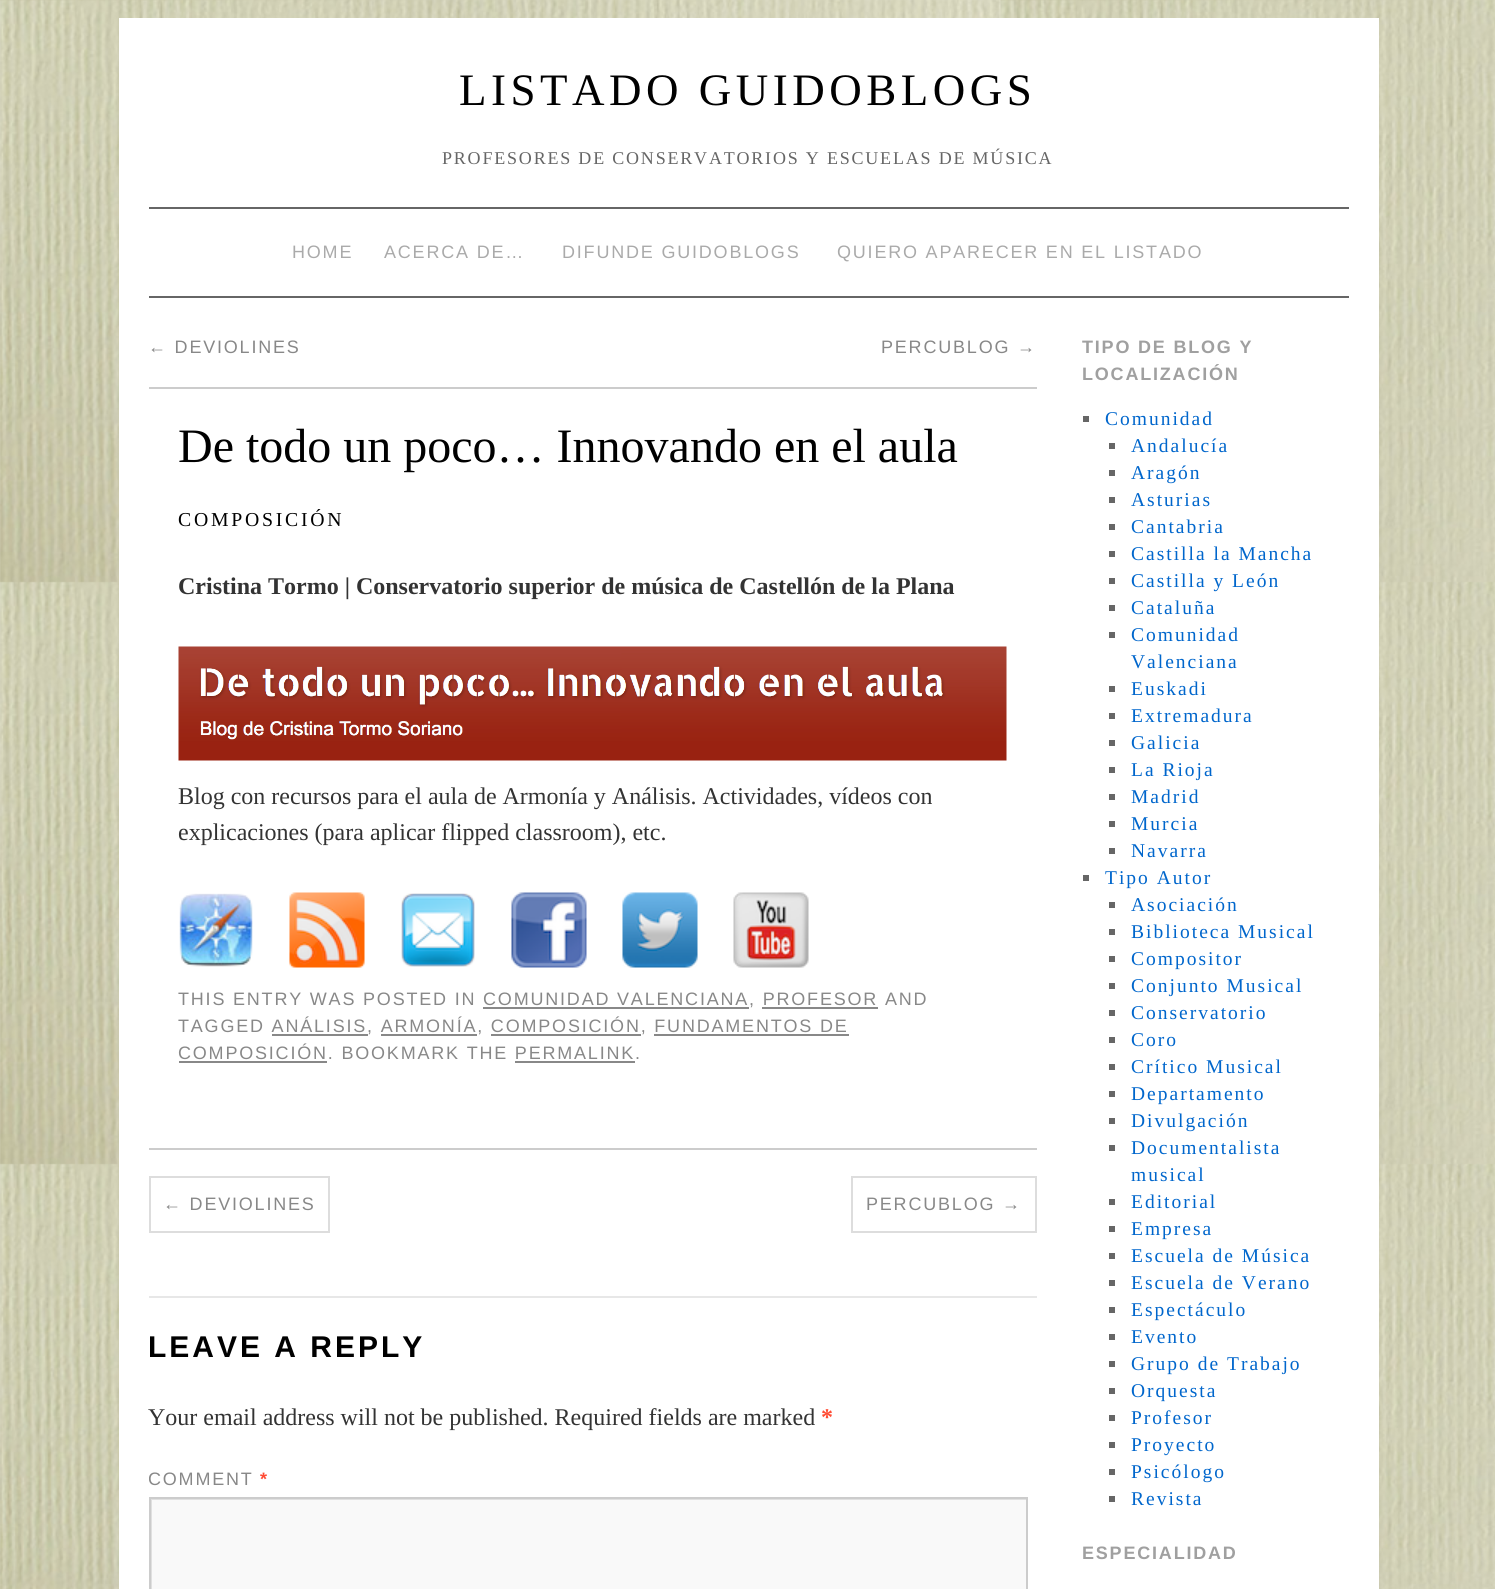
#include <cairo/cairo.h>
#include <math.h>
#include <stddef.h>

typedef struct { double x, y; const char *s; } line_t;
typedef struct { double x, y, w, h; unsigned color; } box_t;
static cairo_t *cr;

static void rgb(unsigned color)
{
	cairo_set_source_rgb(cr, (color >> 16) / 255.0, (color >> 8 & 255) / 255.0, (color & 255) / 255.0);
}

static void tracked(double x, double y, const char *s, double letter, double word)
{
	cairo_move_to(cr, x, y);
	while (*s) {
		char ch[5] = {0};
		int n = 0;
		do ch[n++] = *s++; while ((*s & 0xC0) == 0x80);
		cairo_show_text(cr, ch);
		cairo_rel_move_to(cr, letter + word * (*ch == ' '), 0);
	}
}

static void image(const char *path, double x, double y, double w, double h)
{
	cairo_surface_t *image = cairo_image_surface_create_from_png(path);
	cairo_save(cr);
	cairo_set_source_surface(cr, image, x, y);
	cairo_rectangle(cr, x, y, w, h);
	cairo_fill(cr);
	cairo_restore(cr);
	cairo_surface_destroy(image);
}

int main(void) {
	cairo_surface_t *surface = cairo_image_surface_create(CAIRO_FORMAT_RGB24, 1495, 1589);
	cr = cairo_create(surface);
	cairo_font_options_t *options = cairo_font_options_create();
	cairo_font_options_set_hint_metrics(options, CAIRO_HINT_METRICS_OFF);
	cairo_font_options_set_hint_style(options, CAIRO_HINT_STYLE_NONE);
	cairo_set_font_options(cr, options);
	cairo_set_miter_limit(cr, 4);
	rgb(0xffffff);
	cairo_paint(cr);
	image("img/1.png", 0, 0, 1495, 1589);
	{
		static const box_t items[] = {
			{119, 18, 1260, 1571, 0xffffff},
			{149, 207, 1200, 2, 0x666666},
			{149, 296, 1200, 2, 0x666666},
			{149, 387, 888, 2, 0xcccccc},
		};
		for (size_t i = 0; i < sizeof items / sizeof *items; i++) {
			rgb(items[i].color);
			cairo_rectangle(cr, items[i].x, items[i].y, items[i].w, items[i].h);
			cairo_fill(cr);
		}
	}
	image("img/2.png", 178, 646, 829, 115);
	image("img/3.png", 179, 893, 74, 74);
	image("img/4.png", 289, 892, 76, 76);
	image("img/5.png", 401, 893, 74, 74);
	image("img/6.png", 511, 892, 76, 76);
	image("img/7.png", 622, 892, 76, 76);
	image("img/8.png", 733, 892, 76, 76);
	{
		static const box_t items[] = {
			{483, 1007, 266, 2, 0x888888},
			{762, 1007, 116, 2, 0x888888},
			{272, 1034, 96, 2, 0x888888},
			{381, 1034, 96, 2, 0x888888},
			{491, 1034, 150, 2, 0x888888},
			{654, 1034, 195, 2, 0x888888},
			{179, 1061, 148, 2, 0x888888},
			{515, 1061, 120, 2, 0x888888},
			{149, 1148, 888, 2, 0xcccccc},
		};
		for (size_t i = 0; i < sizeof items / sizeof *items; i++) {
			rgb(items[i].color);
			cairo_rectangle(cr, items[i].x, items[i].y, items[i].w, items[i].h);
			cairo_fill(cr);
		}
	}
	cairo_rectangle(cr, 150, 1177, 179, 55);
	rgb(0xdddddd);
	cairo_stroke(cr);
	cairo_rectangle(cr, 852, 1177, 184, 55);
	cairo_stroke(cr);
	rgb(0xe7e7e7);
	cairo_rectangle(cr, 149, 1296, 888, 2);
	cairo_fill(cr);
	rgb(0xf9f9f9);
	cairo_rectangle(cr, 152, 1500, 874, 89);
	cairo_fill(cr);
	cairo_save(cr);
	cairo_rectangle(cr, 150, 1499, 876, 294);
	cairo_clip(cr);
	rgb(0xe0e0e0);
	cairo_set_fill_rule(cr, CAIRO_FILL_RULE_EVEN_ODD);
	cairo_new_path(cr);
	cairo_move_to(cr, 2, 1350);
	cairo_line_to(cr, 1174, 1350);
	cairo_line_to(cr, 1174, 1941);
	cairo_line_to(cr, 2, 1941);
	cairo_close_path(cr);
	cairo_move_to(cr, 152, 1500);
	cairo_line_to(cr, 1028, 1500);
	cairo_line_to(cr, 1028, 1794);
	cairo_line_to(cr, 152, 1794);
	cairo_close_path(cr);
	cairo_fill(cr);
	cairo_restore(cr);
	cairo_rectangle(cr, 150, 1498, 877, 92);
	rgb(0xcccccc);
	cairo_stroke(cr);
	{
		static const box_t items[] = {
			{1083, 416, 6, 6, 0x666666},
			{1109, 443, 6, 6, 0x666666},
			{1109, 470, 6, 6, 0x666666},
			{1109, 497, 6, 6, 0x666666},
			{1109, 524, 6, 6, 0x666666},
			{1109, 551, 6, 6, 0x666666},
			{1109, 578, 6, 6, 0x666666},
			{1109, 605, 6, 6, 0x666666},
			{1109, 632, 6, 6, 0x666666},
			{1109, 686, 6, 6, 0x666666},
			{1109, 713, 6, 6, 0x666666},
			{1109, 740, 6, 6, 0x666666},
			{1109, 767, 6, 6, 0x666666},
			{1109, 794, 6, 6, 0x666666},
			{1109, 821, 6, 6, 0x666666},
			{1109, 848, 6, 6, 0x666666},
			{1083, 875, 6, 6, 0x666666},
			{1109, 902, 6, 6, 0x666666},
			{1109, 929, 6, 6, 0x666666},
			{1109, 956, 6, 6, 0x666666},
			{1109, 983, 6, 6, 0x666666},
			{1109, 1010, 6, 6, 0x666666},
			{1109, 1037, 6, 6, 0x666666},
			{1109, 1064, 6, 6, 0x666666},
			{1109, 1091, 6, 6, 0x666666},
			{1109, 1118, 6, 6, 0x666666},
			{1109, 1145, 6, 6, 0x666666},
			{1109, 1199, 6, 6, 0x666666},
			{1109, 1226, 6, 6, 0x666666},
			{1109, 1253, 6, 6, 0x666666},
			{1109, 1280, 6, 6, 0x666666},
			{1109, 1307, 6, 6, 0x666666},
			{1109, 1334, 6, 6, 0x666666},
			{1109, 1361, 6, 6, 0x666666},
			{1109, 1388, 6, 6, 0x666666},
			{1109, 1415, 6, 6, 0x666666},
			{1109, 1442, 6, 6, 0x666666},
			{1109, 1469, 6, 6, 0x666666},
			{1109, 1496, 6, 6, 0x666666},
		};
		for (size_t i = 0; i < sizeof items / sizeof *items; i++) {
			rgb(items[i].color);
			cairo_rectangle(cr, items[i].x, items[i].y, items[i].w, items[i].h);
			cairo_fill(cr);
		}
	}
	cairo_select_font_face(cr, "Liberation Serif", CAIRO_FONT_SLANT_NORMAL, CAIRO_FONT_WEIGHT_NORMAL);
	cairo_set_font_size(cr, 45);
	rgb(0x000000);
	tracked(459, 105, "LISTADO GUIDOBLOGS", 4.5, 0);
	cairo_set_font_size(cr, 18);
	rgb(0x666666);
	tracked(442, 164, "PROFESORES DE CONSERVATORIOS Y ESCUELAS DE MÚSICA", 1.8, 0);
	cairo_select_font_face(cr, "Liberation Sans", CAIRO_FONT_SLANT_NORMAL, CAIRO_FONT_WEIGHT_NORMAL);
	rgb(0xaaaaaa);
	{
		static const line_t items[] = {
			{292, 258, "HOME"},
			{384, 258, "ACERCA DE…"},
			{562, 258, "DIFUNDE GUIDOBLOGS"},
			{837, 258, "QUIERO APARECER EN EL LISTADO"},
		};
		for (size_t i = 0; i < sizeof items / sizeof *items; i++) {
			tracked(items[i].x, items[i].y, items[i].s, 1.8, 0);
		}
	}
	rgb(0x888888);
	tracked(148, 353, "← DEVIOLINES", 1.8, 0);
	tracked(881, 353, "PERCUBLOG →", 1.8, 0);
	cairo_select_font_face(cr, "Liberation Serif", CAIRO_FONT_SLANT_NORMAL, CAIRO_FONT_WEIGHT_NORMAL);
	cairo_set_font_size(cr, 48);
	rgb(0x000000);
	cairo_move_to(cr, 178, 462);
	cairo_show_text(cr, "De todo un poco… Innovando en el aula");
	cairo_set_font_size(cr, 19.75);
	tracked(178, 526, "COMPOSICIÓN", 2.75, 0);
	cairo_select_font_face(cr, "Liberation Serif", CAIRO_FONT_SLANT_NORMAL, CAIRO_FONT_WEIGHT_BOLD);
	cairo_set_font_size(cr, 24);
	rgb(0x333333);
	cairo_move_to(cr, 178, 594);
	cairo_show_text(cr, "Cristina Tormo | Conservatorio superior de música de Castellón de la Plana");
	cairo_select_font_face(cr, "Liberation Serif", CAIRO_FONT_SLANT_NORMAL, CAIRO_FONT_WEIGHT_NORMAL);
	cairo_move_to(cr, 178, 804);
	cairo_show_text(cr, "Blog con recursos para el aula de Armonía y Análisis. Actividades, vídeos con");
	cairo_move_to(cr, 178, 840);
	cairo_show_text(cr, "explicaciones (para aplicar flipped classroom), etc.");
	cairo_select_font_face(cr, "Liberation Sans", CAIRO_FONT_SLANT_NORMAL, CAIRO_FONT_WEIGHT_NORMAL);
	cairo_set_font_size(cr, 18);
	rgb(0x888888);
	{
		static const line_t items[] = {
			{178, 1005, "THIS ENTRY WAS POSTED IN COMUNIDAD VALENCIANA, PROFESOR AND"},
			{178, 1032, "TAGGED ANÁLISIS, ARMONÍA, COMPOSICIÓN, FUNDAMENTOS DE"},
			{178, 1059, "COMPOSICIÓN. BOOKMARK THE PERMALINK."},
			{163, 1210, "← DEVIOLINES"},
			{866, 1210, "PERCUBLOG →"},
		};
		for (size_t i = 0; i < sizeof items / sizeof *items; i++) {
			tracked(items[i].x, items[i].y, items[i].s, 1.8, 0);
		}
	}
	cairo_select_font_face(cr, "Liberation Sans", CAIRO_FONT_SLANT_NORMAL, CAIRO_FONT_WEIGHT_BOLD);
	cairo_set_font_size(cr, 30);
	rgb(0x000000);
	tracked(148, 1357, "LEAVE A REPLY", 3, 0);
	cairo_select_font_face(cr, "Liberation Serif", CAIRO_FONT_SLANT_NORMAL, CAIRO_FONT_WEIGHT_NORMAL);
	cairo_set_font_size(cr, 24);
	rgb(0x333333);
	cairo_move_to(cr, 148, 1425);
	cairo_show_text(cr, "Your email address will not be published. Required fields are marked");
	cairo_select_font_face(cr, "Liberation Serif", CAIRO_FONT_SLANT_NORMAL, CAIRO_FONT_WEIGHT_BOLD);
	rgb(0xff4b33);
	cairo_move_to(cr, 821, 1425);
	cairo_show_text(cr, "*");
	cairo_save(cr);
	cairo_rectangle(cr, 149, 1298, 888, 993);
	cairo_clip(cr);
	cairo_select_font_face(cr, "Liberation Sans", CAIRO_FONT_SLANT_NORMAL, CAIRO_FONT_WEIGHT_NORMAL);
	cairo_set_font_size(cr, 18);
	rgb(0x888888);
	tracked(148, 1485, "COMMENT", 1.8, 0);
	cairo_restore(cr);
	cairo_select_font_face(cr, "Liberation Sans", CAIRO_FONT_SLANT_NORMAL, CAIRO_FONT_WEIGHT_BOLD);
	cairo_set_font_size(cr, 18);
	tracked(260, 1485, "*", 1.8, 0);
	rgb(0xa0a0a0);
	tracked(1082, 353, "TIPO DE BLOG Y", 1.8, 0);
	tracked(1082, 380, "LOCALIZACIÓN", 1.8, 0);
	cairo_select_font_face(cr, "Liberation Serif", CAIRO_FONT_SLANT_NORMAL, CAIRO_FONT_WEIGHT_NORMAL);
	cairo_set_font_size(cr, 19.5);
	rgb(0x0066cc);
	{
		static const line_t items[] = {
			{1105, 425, "Comunidad"},
			{1131, 452, "Andalucía"},
			{1131, 479, "Aragón"},
			{1131, 506, "Asturias"},
			{1131, 533, "Cantabria"},
			{1131, 560, "Castilla la Mancha"},
			{1131, 587, "Castilla y León"},
			{1131, 614, "Cataluña"},
			{1131, 641, "Comunidad"},
			{1131, 668, "Valenciana"},
			{1131, 695, "Euskadi"},
			{1131, 722, "Extremadura"},
			{1131, 749, "Galicia"},
			{1131, 776, "La Rioja"},
			{1131, 803, "Madrid"},
			{1131, 830, "Murcia"},
			{1131, 857, "Navarra"},
			{1105, 884, "Tipo Autor"},
			{1131, 911, "Asociación"},
			{1131, 938, "Biblioteca Musical"},
			{1131, 965, "Compositor"},
			{1131, 992, "Conjunto Musical"},
			{1131, 1019, "Conservatorio"},
			{1131, 1046, "Coro"},
			{1131, 1073, "Crítico Musical"},
			{1131, 1100, "Departamento"},
			{1131, 1127, "Divulgación"},
			{1131, 1154, "Documentalista"},
			{1131, 1181, "musical"},
			{1131, 1208, "Editorial"},
			{1131, 1235, "Empresa"},
			{1131, 1262, "Escuela de Música"},
			{1131, 1289, "Escuela de Verano"},
			{1131, 1316, "Espectáculo"},
			{1131, 1343, "Evento"},
			{1131, 1370, "Grupo de Trabajo"},
			{1131, 1397, "Orquesta"},
			{1131, 1424, "Profesor"},
			{1131, 1451, "Proyecto"},
			{1131, 1478, "Psicólogo"},
			{1131, 1505, "Revista"},
		};
		for (size_t i = 0; i < sizeof items / sizeof *items; i++) {
			tracked(items[i].x, items[i].y, items[i].s, 2, 0);
		}
	}
	cairo_select_font_face(cr, "Liberation Sans", CAIRO_FONT_SLANT_NORMAL, CAIRO_FONT_WEIGHT_BOLD);
	cairo_set_font_size(cr, 18);
	rgb(0xa0a0a0);
	tracked(1082, 1559, "ESPECIALIDAD", 1.8, 0);
	cairo_surface_write_to_png(surface, "page.png");
	cairo_font_options_destroy(options);
	cairo_destroy(cr);
	cairo_surface_destroy(surface);
	return 0;
}
